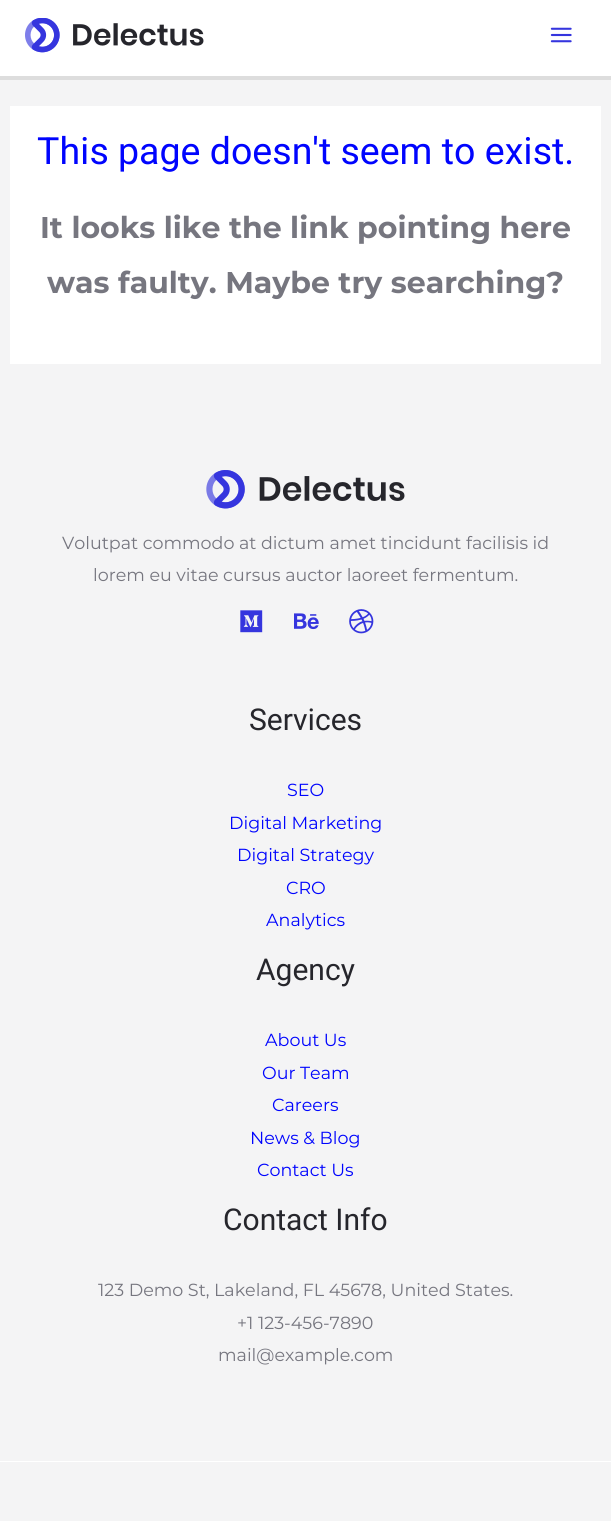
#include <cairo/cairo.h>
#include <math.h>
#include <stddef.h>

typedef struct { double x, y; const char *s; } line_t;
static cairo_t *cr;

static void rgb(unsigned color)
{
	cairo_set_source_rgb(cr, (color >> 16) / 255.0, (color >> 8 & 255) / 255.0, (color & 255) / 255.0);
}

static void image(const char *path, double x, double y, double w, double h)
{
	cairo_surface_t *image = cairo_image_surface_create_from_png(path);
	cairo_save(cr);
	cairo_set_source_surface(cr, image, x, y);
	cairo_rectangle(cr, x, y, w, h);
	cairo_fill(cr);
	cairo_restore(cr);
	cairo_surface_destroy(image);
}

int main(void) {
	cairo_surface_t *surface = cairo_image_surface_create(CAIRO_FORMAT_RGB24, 611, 1521);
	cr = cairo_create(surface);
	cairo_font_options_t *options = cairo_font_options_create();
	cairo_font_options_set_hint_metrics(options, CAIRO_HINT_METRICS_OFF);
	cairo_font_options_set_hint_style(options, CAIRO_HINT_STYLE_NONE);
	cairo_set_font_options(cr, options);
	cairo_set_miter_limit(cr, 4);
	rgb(0xf4f4f5);
	cairo_paint(cr);
	rgb(0xffffff);
	cairo_rectangle(cr, 0, 0, 611, 76);
	cairo_fill(cr);
	rgb(0xdddddd);
	cairo_rectangle(cr, 0, 76, 611, 4);
	cairo_fill(cr);
	image("img/1.png", 25, 18, 179, 35);
	image("img/2.png", 550, 27, 22, 16);
	rgb(0xffffff);
	cairo_rectangle(cr, 10, 106, 591, 258);
	cairo_fill(cr);
	image("img/3.png", 206, 470, 199, 39);
	image("img/4.png", 240, 610, 23, 23);
	image("img/5.png", 294, 613, 25, 17);
	image("img/6.png", 349, 609, 25, 25);
	cairo_rectangle(cr, 0, 1461, 611, 1);
	cairo_fill(cr);
	cairo_select_font_face(cr, "Heebo", CAIRO_FONT_SLANT_NORMAL, CAIRO_FONT_WEIGHT_NORMAL);
	cairo_set_font_size(cr, 37.5);
	rgb(0x0004fe);
	cairo_move_to(cr, 37, 164);
	cairo_show_text(cr, "This page doesn't seem to exist.");
	cairo_select_font_face(cr, "Montserrat", CAIRO_FONT_SLANT_NORMAL, CAIRO_FONT_WEIGHT_BOLD);
	cairo_set_font_size(cr, 30);
	rgb(0x76767f);
	cairo_move_to(cr, 40, 238);
	cairo_show_text(cr, "It looks like the link pointing here");
	cairo_move_to(cr, 47, 293);
	cairo_show_text(cr, "was faulty. Maybe try searching?");
	cairo_select_font_face(cr, "Montserrat", CAIRO_FONT_SLANT_NORMAL, CAIRO_FONT_WEIGHT_NORMAL);
	cairo_set_font_size(cr, 17.5);
	cairo_move_to(cr, 62, 549);
	cairo_show_text(cr, "Volutpat commodo at dictum amet tincidunt facilisis id");
	cairo_move_to(cr, 93, 581);
	cairo_show_text(cr, "lorem eu vitae cursus auctor laoreet fermentum.");
	cairo_select_font_face(cr, "Heebo", CAIRO_FONT_SLANT_NORMAL, CAIRO_FONT_WEIGHT_NORMAL);
	cairo_set_font_size(cr, 30);
	rgb(0x26262c);
	cairo_move_to(cr, 249, 730);
	cairo_show_text(cr, "Services");
	cairo_select_font_face(cr, "Montserrat", CAIRO_FONT_SLANT_NORMAL, CAIRO_FONT_WEIGHT_NORMAL);
	cairo_set_font_size(cr, 17.5);
	rgb(0x0004fe);
	{
		static const line_t items[] = {
			{287, 796, "SEO"},
			{229, 829, "Digital Marketing"},
			{237, 861, "Digital Strategy"},
			{286, 894, "CRO"},
			{266, 926, "Analytics"},
		};
		for (size_t i = 0; i < sizeof items / sizeof *items; i++) {
			cairo_move_to(cr, items[i].x, items[i].y);
			cairo_show_text(cr, items[i].s);
		}
	}
	cairo_select_font_face(cr, "Heebo", CAIRO_FONT_SLANT_NORMAL, CAIRO_FONT_WEIGHT_NORMAL);
	cairo_set_font_size(cr, 30);
	rgb(0x26262c);
	cairo_move_to(cr, 256, 980);
	cairo_show_text(cr, "Agency");
	cairo_select_font_face(cr, "Montserrat", CAIRO_FONT_SLANT_NORMAL, CAIRO_FONT_WEIGHT_NORMAL);
	cairo_set_font_size(cr, 17.5);
	rgb(0x0004fe);
	{
		static const line_t items[] = {
			{265, 1046, "About Us"},
			{262, 1079, "Our Team"},
			{272, 1111, "Careers"},
			{250, 1144, "News & Blog"},
			{257, 1176, "Contact Us"},
		};
		for (size_t i = 0; i < sizeof items / sizeof *items; i++) {
			cairo_move_to(cr, items[i].x, items[i].y);
			cairo_show_text(cr, items[i].s);
		}
	}
	cairo_select_font_face(cr, "Heebo", CAIRO_FONT_SLANT_NORMAL, CAIRO_FONT_WEIGHT_NORMAL);
	cairo_set_font_size(cr, 30);
	rgb(0x26262c);
	cairo_move_to(cr, 223, 1230);
	cairo_show_text(cr, "Contact Info");
	cairo_select_font_face(cr, "Montserrat", CAIRO_FONT_SLANT_NORMAL, CAIRO_FONT_WEIGHT_NORMAL);
	cairo_set_font_size(cr, 17.5);
	rgb(0x76767f);
	{
		static const line_t items[] = {
			{98, 1296, "123 Demo St, Lakeland, FL 45678, United States."},
			{237, 1329, "+1 123-456-7890"},
			{218, 1361, "mail@example.com"},
		};
		for (size_t i = 0; i < sizeof items / sizeof *items; i++) {
			cairo_move_to(cr, items[i].x, items[i].y);
			cairo_show_text(cr, items[i].s);
		}
	}
	cairo_surface_write_to_png(surface, "page.png");
	cairo_font_options_destroy(options);
	cairo_destroy(cr);
	cairo_surface_destroy(surface);
	return 0;
}
